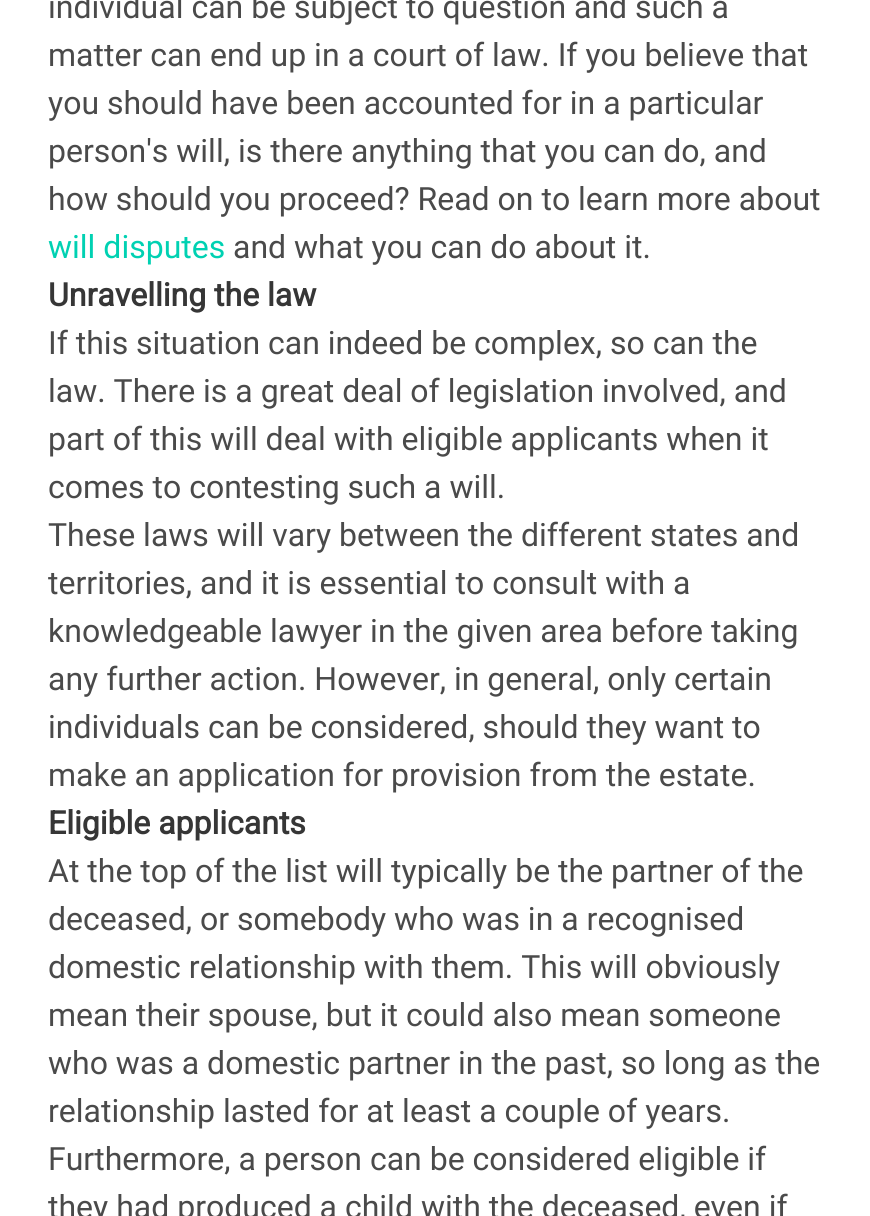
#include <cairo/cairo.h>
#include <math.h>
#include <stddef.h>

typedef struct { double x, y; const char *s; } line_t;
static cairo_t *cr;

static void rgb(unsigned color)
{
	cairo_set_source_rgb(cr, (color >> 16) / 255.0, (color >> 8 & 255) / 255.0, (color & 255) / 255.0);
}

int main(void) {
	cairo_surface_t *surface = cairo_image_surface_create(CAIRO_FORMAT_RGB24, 870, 1216);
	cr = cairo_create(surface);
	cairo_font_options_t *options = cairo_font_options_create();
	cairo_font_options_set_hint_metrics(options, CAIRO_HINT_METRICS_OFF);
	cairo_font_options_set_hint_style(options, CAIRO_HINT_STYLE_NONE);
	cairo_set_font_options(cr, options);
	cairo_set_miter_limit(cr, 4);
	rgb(0xffffff);
	cairo_paint(cr);
	cairo_select_font_face(cr, "Roboto", CAIRO_FONT_SLANT_NORMAL, CAIRO_FONT_WEIGHT_NORMAL);
	cairo_set_font_size(cr, 32);
	rgb(0x4a4a4a);
	{
		static const line_t items[] = {
			{48, 18, "individual can be subject to question and such a"},
			{48, 66, "matter can end up in a court of law. If you believe that"},
			{48, 114, "you should have been accounted for in a particular"},
			{48, 162, "person's will, is there anything that you can do, and"},
			{48, 210, "how should you proceed? Read on to learn more about"},
		};
		for (size_t i = 0; i < sizeof items / sizeof *items; i++) {
			cairo_move_to(cr, items[i].x, items[i].y);
			cairo_show_text(cr, items[i].s);
		}
	}
	rgb(0x00d1b2);
	cairo_move_to(cr, 48, 258);
	cairo_show_text(cr, "will disputes");
	rgb(0x4a4a4a);
	cairo_move_to(cr, 233, 258);
	cairo_show_text(cr, "and what you can do about it.");
	cairo_select_font_face(cr, "Roboto", CAIRO_FONT_SLANT_NORMAL, CAIRO_FONT_WEIGHT_BOLD);
	rgb(0x363636);
	cairo_move_to(cr, 48, 306);
	cairo_show_text(cr, "Unravelling the law");
	cairo_select_font_face(cr, "Roboto", CAIRO_FONT_SLANT_NORMAL, CAIRO_FONT_WEIGHT_NORMAL);
	rgb(0x4a4a4a);
	{
		static const line_t items[] = {
			{48, 354, "If this situation can indeed be complex, so can the"},
			{48, 402, "law. There is a great deal of legislation involved, and"},
			{48, 450, "part of this will deal with eligible applicants when it"},
			{48, 498, "comes to contesting such a will."},
			{48, 546, "These laws will vary between the different states and"},
			{48, 594, "territories, and it is essential to consult with a"},
			{48, 642, "knowledgeable lawyer in the given area before taking"},
			{48, 690, "any further action. However, in general, only certain"},
			{48, 738, "individuals can be considered, should they want to"},
			{48, 786, "make an application for provision from the estate."},
		};
		for (size_t i = 0; i < sizeof items / sizeof *items; i++) {
			cairo_move_to(cr, items[i].x, items[i].y);
			cairo_show_text(cr, items[i].s);
		}
	}
	cairo_select_font_face(cr, "Roboto", CAIRO_FONT_SLANT_NORMAL, CAIRO_FONT_WEIGHT_BOLD);
	rgb(0x363636);
	cairo_move_to(cr, 48, 834);
	cairo_show_text(cr, "Eligible applicants");
	cairo_select_font_face(cr, "Roboto", CAIRO_FONT_SLANT_NORMAL, CAIRO_FONT_WEIGHT_NORMAL);
	rgb(0x4a4a4a);
	{
		static const line_t items[] = {
			{48, 882, "At the top of the list will typically be the partner of the"},
			{48, 930, "deceased, or somebody who was in a recognised"},
			{48, 978, "domestic relationship with them. This will obviously"},
			{48, 1026, "mean their spouse, but it could also mean someone"},
			{48, 1074, "who was a domestic partner in the past, so long as the"},
			{48, 1122, "relationship lasted for at least a couple of years."},
			{48, 1170, "Furthermore, a person can be considered eligible if"},
			{48, 1218, "they had produced a child with the deceased, even if"},
		};
		for (size_t i = 0; i < sizeof items / sizeof *items; i++) {
			cairo_move_to(cr, items[i].x, items[i].y);
			cairo_show_text(cr, items[i].s);
		}
	}
	cairo_surface_write_to_png(surface, "page.png");
	cairo_font_options_destroy(options);
	cairo_destroy(cr);
	cairo_surface_destroy(surface);
	return 0;
}
